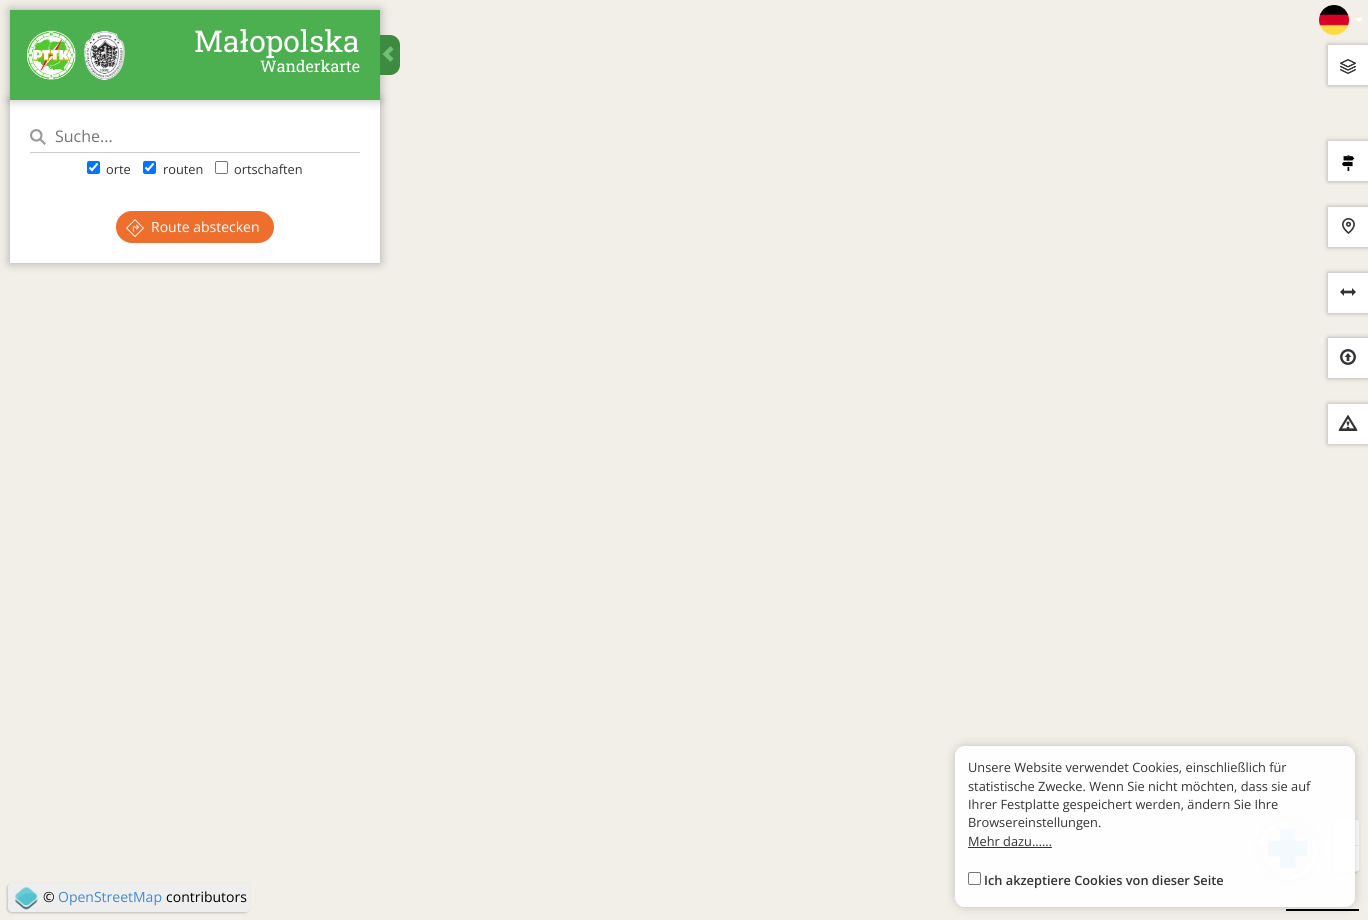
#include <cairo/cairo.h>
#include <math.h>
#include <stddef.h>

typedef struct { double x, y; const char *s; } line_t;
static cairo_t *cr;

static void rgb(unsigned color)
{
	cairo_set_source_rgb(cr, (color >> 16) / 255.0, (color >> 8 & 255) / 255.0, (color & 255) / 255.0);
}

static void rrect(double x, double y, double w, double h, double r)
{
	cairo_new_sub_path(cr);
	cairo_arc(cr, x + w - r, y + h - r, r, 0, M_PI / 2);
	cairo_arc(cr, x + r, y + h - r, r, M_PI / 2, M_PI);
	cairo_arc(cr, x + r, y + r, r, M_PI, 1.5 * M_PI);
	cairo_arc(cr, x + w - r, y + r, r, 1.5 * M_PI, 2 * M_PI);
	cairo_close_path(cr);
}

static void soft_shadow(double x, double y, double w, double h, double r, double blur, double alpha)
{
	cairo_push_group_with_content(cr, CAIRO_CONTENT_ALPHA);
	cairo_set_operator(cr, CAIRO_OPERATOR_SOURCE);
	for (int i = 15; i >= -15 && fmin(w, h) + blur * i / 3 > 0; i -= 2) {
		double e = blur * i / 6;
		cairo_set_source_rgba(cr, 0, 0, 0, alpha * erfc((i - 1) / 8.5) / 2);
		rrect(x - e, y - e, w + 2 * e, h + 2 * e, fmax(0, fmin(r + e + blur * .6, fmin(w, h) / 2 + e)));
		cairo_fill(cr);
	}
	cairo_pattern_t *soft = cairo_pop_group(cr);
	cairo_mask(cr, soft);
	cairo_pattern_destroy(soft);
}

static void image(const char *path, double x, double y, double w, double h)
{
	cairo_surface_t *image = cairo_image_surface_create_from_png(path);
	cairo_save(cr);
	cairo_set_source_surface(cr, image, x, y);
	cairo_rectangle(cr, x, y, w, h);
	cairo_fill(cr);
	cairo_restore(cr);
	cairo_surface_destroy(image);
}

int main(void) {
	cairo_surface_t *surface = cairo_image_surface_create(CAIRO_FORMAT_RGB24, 1368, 920);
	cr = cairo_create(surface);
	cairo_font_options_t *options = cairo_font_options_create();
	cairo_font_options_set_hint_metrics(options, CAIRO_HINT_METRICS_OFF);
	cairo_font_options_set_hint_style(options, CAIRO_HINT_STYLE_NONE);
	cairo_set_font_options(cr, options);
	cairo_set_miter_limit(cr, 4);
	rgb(0xf2efe9);
	cairo_paint(cr);
	image("img/1.png", 1319, 5, 30, 30);
	rgb(0xffffff);
	cairo_new_path(cr);
	cairo_move_to(cr, 1355, 18);
	cairo_line_to(cr, 1363, 18);
	cairo_line_to(cr, 1359, 22);
	cairo_close_path(cr);
	cairo_fill(cr);
	rgb(0x000000);
	soft_shadow(10, 100, 370, 163, 0, 5, 0.3);
	rgb(0xffffff);
	cairo_rectangle(cr, 10, 100, 370, 163);
	cairo_fill(cr);
	rgb(0x000000);
	soft_shadow(10, 10, 370, 90, 0, 5, 0.3);
	rgb(0x4caf50);
	cairo_rectangle(cr, 10, 10, 370, 90);
	cairo_fill(cr);
	image("img/2.png", 27, 30, 98, 50);
	rgb(0x3d8b40);
	cairo_new_path(cr);
	cairo_move_to(cr, 380, 35);
	cairo_line_to(cr, 390, 35);
	cairo_curve_to(cr, 395.5, 35, 400, 39.5, 400, 45);
	cairo_line_to(cr, 400, 65);
	cairo_curve_to(cr, 400, 70.5, 395.5, 75, 390, 75);
	cairo_line_to(cr, 380, 75);
	cairo_close_path(cr);
	cairo_fill(cr);
	image("img/3.png", 382, 46, 12, 16);
	image("img/4.png", 30, 129, 16, 16);
	rgb(0xcccccc);
	cairo_rectangle(cr, 30, 152, 330, 1);
	cairo_fill(cr);
	rgb(0x0075ff);
	rrect(87, 161, 13, 13, 2);
	cairo_fill(cr);
	cairo_new_path(cr);
	cairo_move_to(cr, 89.5, 167.5);
	cairo_line_to(cr, 92, 170);
	cairo_line_to(cr, 97.5, 163.5);
	rgb(0xffffff);
	cairo_set_line_width(cr, 2.1);
	cairo_stroke(cr);
	rgb(0x0075ff);
	rrect(143, 161, 13, 13, 2);
	cairo_fill(cr);
	cairo_new_path(cr);
	cairo_move_to(cr, 145.5, 167.5);
	cairo_line_to(cr, 148, 170);
	cairo_line_to(cr, 153.5, 163.5);
	rgb(0xffffff);
	cairo_stroke(cr);
	rrect(215.5, 161.5, 12, 12, 1.5);
	rgb(0x767676);
	cairo_set_line_width(cr, 1);
	cairo_stroke(cr);
	rgb(0xee6e2d);
	rrect(116, 211, 158, 32, 16);
	cairo_fill(cr);
	image("img/5.png", 126, 219, 18, 18);
	rgb(0x000000);
	soft_shadow(1328, 45, 40, 40, 0, 2.5, 0.3);
	rgb(0xffffff);
	cairo_rectangle(cr, 1328, 45, 40, 40);
	cairo_fill(cr);
	image("img/6.png", 1340, 59, 16, 15);
	rgb(0x000000);
	soft_shadow(1328, 141, 40, 40, 0, 2.5, 0.3);
	rgb(0xffffff);
	cairo_rectangle(cr, 1328, 141, 40, 40);
	cairo_fill(cr);
	image("img/7.png", 1341, 155, 14, 16);
	rgb(0x000000);
	soft_shadow(1328, 207, 40, 40, 0, 2.5, 0.3);
	rgb(0xffffff);
	cairo_rectangle(cr, 1328, 207, 40, 40);
	cairo_fill(cr);
	image("img/8.png", 1342, 218, 13, 16);
	rgb(0x000000);
	soft_shadow(1328, 273, 40, 40, 0, 2.5, 0.3);
	rgb(0xffffff);
	cairo_rectangle(cr, 1328, 273, 40, 40);
	cairo_fill(cr);
	image("img/9.png", 1340, 288, 16, 8);
	rgb(0x000000);
	soft_shadow(1328, 338, 40, 40, 0, 2.5, 0.3);
	rgb(0xffffff);
	cairo_rectangle(cr, 1328, 338, 40, 40);
	cairo_fill(cr);
	image("img/10.png", 1340, 349, 16, 16);
	rgb(0x000000);
	soft_shadow(1328, 404, 40, 40, 0, 2.5, 0.3);
	rgb(0xffffff);
	cairo_rectangle(cr, 1328, 404, 40, 40);
	cairo_fill(cr);
	image("img/11.png", 1338, 415, 20, 16);
	rgb(0x000000);
	soft_shadow(1332, 820, 27, 53, 4, 1, 0.2);
	rgb(0xeeeeee);
	rrect(1333, 819, 27, 53, 4);
	cairo_fill(cr);
	rgb(0x000000);
	soft_shadow(1258, 820, 60, 60, 30, 5, 0.3);
	image("img/12.png", 1258, 820, 60, 60);
	rgb(0xffffff);
	cairo_new_path(cr);
	cairo_move_to(cr, 1336, 820);
	cairo_line_to(cr, 1357, 820);
	cairo_curve_to(cr, 1358, 820, 1359, 821, 1359, 822);
	cairo_line_to(cr, 1359, 845);
	cairo_line_to(cr, 1334, 845);
	cairo_line_to(cr, 1334, 822);
	cairo_curve_to(cr, 1334, 821, 1335, 820, 1336, 820);
	cairo_close_path(cr);
	cairo_fill(cr);
	cairo_new_path(cr);
	cairo_move_to(cr, 1334, 846);
	cairo_line_to(cr, 1359, 846);
	cairo_line_to(cr, 1359, 869);
	cairo_curve_to(cr, 1359, 870, 1358, 871, 1357, 871);
	cairo_line_to(cr, 1336, 871);
	cairo_curve_to(cr, 1335, 871, 1334, 870, 1334, 869);
	cairo_close_path(cr);
	cairo_fill(cr);
	rgb(0x000000);
	cairo_rectangle(cr, 1286, 909, 73, 2);
	cairo_fill(cr);
	cairo_save(cr);
	cairo_set_fill_rule(cr, CAIRO_FILL_RULE_EVEN_ODD);
	cairo_new_path(cr);
	cairo_move_to(cr, 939, 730);
	cairo_line_to(cr, 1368, 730);
	cairo_line_to(cr, 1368, 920);
	cairo_line_to(cr, 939, 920);
	cairo_close_path(cr);
	cairo_move_to(cr, 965, 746);
	cairo_line_to(cr, 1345, 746);
	cairo_curve_to(cr, 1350.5, 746, 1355, 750.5, 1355, 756);
	cairo_line_to(cr, 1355, 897);
	cairo_curve_to(cr, 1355, 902.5, 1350.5, 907, 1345, 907);
	cairo_line_to(cr, 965, 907);
	cairo_curve_to(cr, 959.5, 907, 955, 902.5, 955, 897);
	cairo_line_to(cr, 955, 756);
	cairo_curve_to(cr, 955, 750.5, 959.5, 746, 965, 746);
	cairo_close_path(cr);
	cairo_clip(cr);
	rgb(0x000000);
	soft_shadow(955, 746, 400, 161, 10, 5, 0.2);
	cairo_restore(cr);
	cairo_set_source_rgba(cr, 1, 1, 1, 0.95);
	rrect(955, 746, 400, 161, 10);
	cairo_fill(cr);
	rgb(0x333333);
	cairo_rectangle(cr, 968, 847, 84, 1);
	cairo_fill(cr);
	rrect(968.5, 872.5, 12, 12, 1.5);
	rgb(0x767676);
	cairo_stroke(cr);
	rgb(0x000000);
	soft_shadow(7, 884, 242, 29, 4, 1, 0.2);
	rgb(0xeeeeee);
	rrect(8, 883, 242, 29, 4);
	cairo_fill(cr);
	image("img/13.png", 15, 886, 23, 24);
	cairo_select_font_face(cr, "Roboto Slab", CAIRO_FONT_SLANT_NORMAL, CAIRO_FONT_WEIGHT_NORMAL);
	cairo_set_font_size(cr, 30);
	rgb(0xffffff);
	cairo_move_to(cr, 194, 52);
	cairo_show_text(cr, "Małopolska");
	cairo_set_font_size(cr, 16);
	cairo_move_to(cr, 260, 72);
	cairo_show_text(cr, "Wanderkarte");
	cairo_select_font_face(cr, "Open Sans", CAIRO_FONT_SLANT_NORMAL, CAIRO_FONT_WEIGHT_NORMAL);
	rgb(0x757575);
	cairo_move_to(cr, 55, 142);
	cairo_show_text(cr, "Suche...");
	cairo_set_font_size(cr, 12.8);
	rgb(0x333333);
	{
		static const line_t items[] = {
			{106, 174, "orte"},
			{163, 174, "routen"},
			{234, 174, "ortschaften"},
		};
		for (size_t i = 0; i < sizeof items / sizeof *items; i++) {
			cairo_move_to(cr, items[i].x, items[i].y);
			cairo_show_text(cr, items[i].s);
		}
	}
	cairo_set_font_size(cr, 14);
	rgb(0xffffff);
	cairo_move_to(cr, 151, 232);
	cairo_show_text(cr, "Route abstecken");
	cairo_set_font_size(cr, 12.8);
	rgb(0x333333);
	{
		static const line_t items[] = {
			{968, 772, "Unsere Website verwendet Cookies, einschließlich für"},
			{968, 791, "statistische Zwecke. Wenn Sie nicht möchten, dass sie auf"},
			{968, 809, "Ihrer Festplatte gespeichert werden, ändern Sie Ihre"},
			{968, 827, "Browsereinstellungen."},
			{968, 846, "Mehr dazu......"},
		};
		for (size_t i = 0; i < sizeof items / sizeof *items; i++) {
			cairo_move_to(cr, items[i].x, items[i].y);
			cairo_show_text(cr, items[i].s);
		}
	}
	cairo_select_font_face(cr, "Open Sans SemiBold", CAIRO_FONT_SLANT_NORMAL, CAIRO_FONT_WEIGHT_NORMAL);
	cairo_move_to(cr, 984, 885);
	cairo_show_text(cr, "Ich akzeptiere Cookies von dieser Seite");
	cairo_select_font_face(cr, "Open Sans", CAIRO_FONT_SLANT_NORMAL, CAIRO_FONT_WEIGHT_NORMAL);
	cairo_set_font_size(cr, 14);
	rgb(0x000000);
	cairo_move_to(cr, 43, 902);
	cairo_show_text(cr, "©");
	rgb(0x428bca);
	cairo_move_to(cr, 58, 902);
	cairo_show_text(cr, "OpenStreetMap");
	rgb(0x000000);
	cairo_move_to(cr, 166, 902);
	cairo_show_text(cr, "contributors");
	cairo_surface_write_to_png(surface, "page.png");
	cairo_font_options_destroy(options);
	cairo_destroy(cr);
	cairo_surface_destroy(surface);
	return 0;
}
